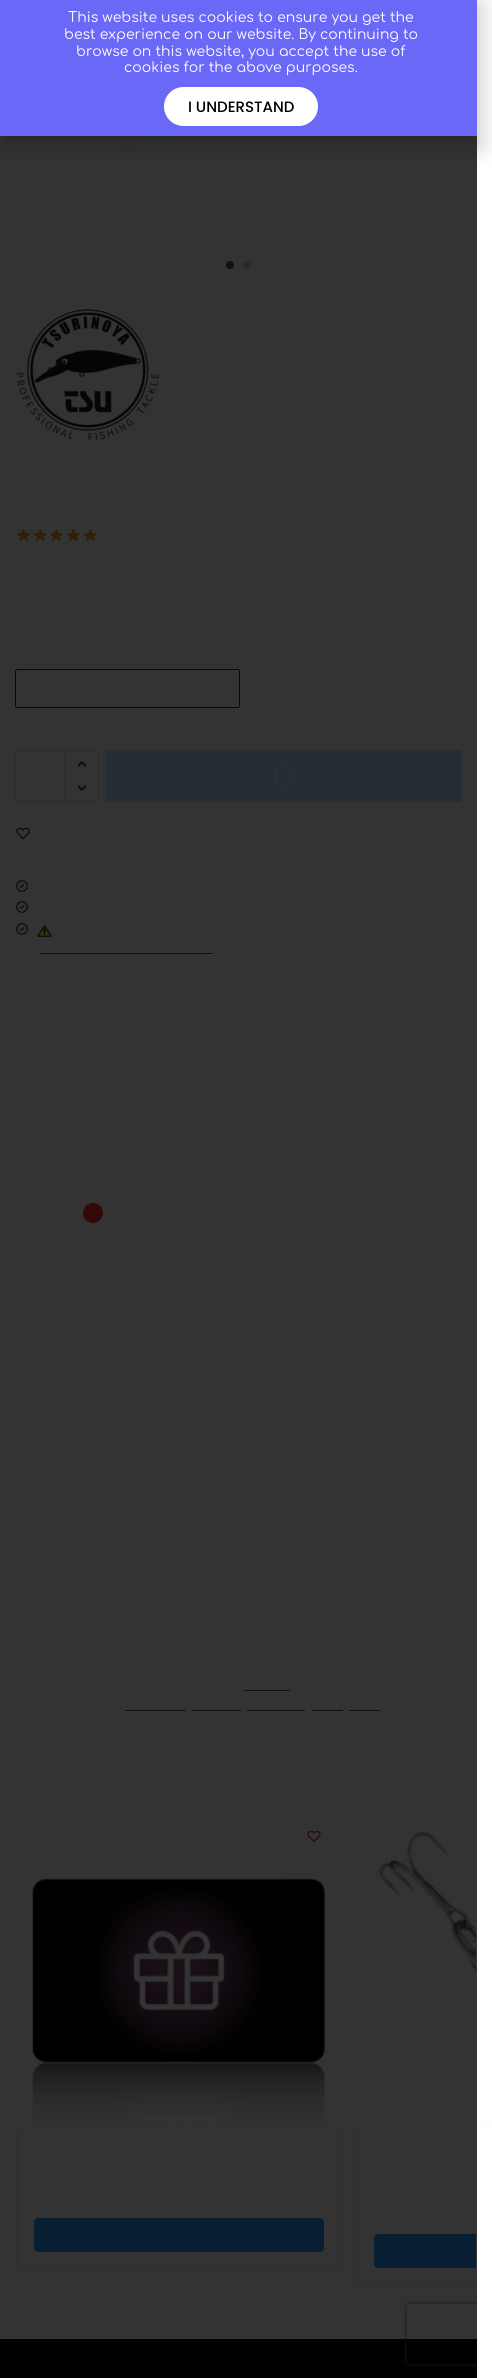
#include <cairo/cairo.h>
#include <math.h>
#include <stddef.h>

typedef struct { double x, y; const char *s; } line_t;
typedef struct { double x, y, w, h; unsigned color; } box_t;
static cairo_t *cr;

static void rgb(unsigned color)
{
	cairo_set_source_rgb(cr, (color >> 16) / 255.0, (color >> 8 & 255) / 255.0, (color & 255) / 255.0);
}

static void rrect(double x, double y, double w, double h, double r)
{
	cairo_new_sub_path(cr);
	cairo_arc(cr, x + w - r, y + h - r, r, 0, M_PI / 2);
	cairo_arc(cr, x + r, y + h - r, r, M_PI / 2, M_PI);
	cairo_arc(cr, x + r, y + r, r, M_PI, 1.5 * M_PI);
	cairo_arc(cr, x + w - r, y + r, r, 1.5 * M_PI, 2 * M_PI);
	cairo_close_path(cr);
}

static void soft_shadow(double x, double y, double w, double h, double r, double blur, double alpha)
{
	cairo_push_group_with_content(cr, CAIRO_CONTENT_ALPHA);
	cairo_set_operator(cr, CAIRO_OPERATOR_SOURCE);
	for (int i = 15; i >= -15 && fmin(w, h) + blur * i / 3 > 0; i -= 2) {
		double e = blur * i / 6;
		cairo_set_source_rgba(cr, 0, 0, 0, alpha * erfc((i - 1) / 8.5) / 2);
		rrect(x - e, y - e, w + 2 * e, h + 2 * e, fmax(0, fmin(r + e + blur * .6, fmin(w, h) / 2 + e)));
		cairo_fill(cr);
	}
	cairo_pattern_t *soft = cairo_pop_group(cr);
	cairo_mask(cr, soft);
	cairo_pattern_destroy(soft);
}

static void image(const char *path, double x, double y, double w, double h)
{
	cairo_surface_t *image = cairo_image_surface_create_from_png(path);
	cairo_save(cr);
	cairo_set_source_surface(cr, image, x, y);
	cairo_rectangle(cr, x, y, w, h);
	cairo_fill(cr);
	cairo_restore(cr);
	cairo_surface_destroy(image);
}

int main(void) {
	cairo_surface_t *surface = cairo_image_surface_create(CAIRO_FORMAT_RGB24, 492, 2378);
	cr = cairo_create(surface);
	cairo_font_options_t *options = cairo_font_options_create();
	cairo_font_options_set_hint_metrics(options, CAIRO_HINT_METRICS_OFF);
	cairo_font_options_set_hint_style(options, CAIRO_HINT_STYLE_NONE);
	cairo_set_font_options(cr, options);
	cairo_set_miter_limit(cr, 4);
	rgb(0xffffff);
	cairo_paint(cr);
	image("img/1.png", 74, 136, 296, 16);
	rgb(0x555555);
	cairo_arc(cr, 230, 265, 4, 0, 2 * M_PI);
	cairo_fill(cr);
	rgb(0xcccccc);
	cairo_arc(cr, 247, 265, 4, 0, 2 * M_PI);
	cairo_fill(cr);
	image("img/2.png", 15, 309, 145, 132);
	image("img/3.png", 17, 529, 80, 12);
	image("img/4.png", 17, 529, 80, 12);
	rrect(15.5, 583.5, 220, 37, 1.5);
	rgb(0xebebeb);
	cairo_set_line_width(cr, 1);
	cairo_stroke(cr);
	rrect(15.5, 626.5, 217, 37, 1.5);
	cairo_stroke(cr);
	rrect(15.5, 669.5, 224, 38, 1.5);
	rgb(0x333333);
	cairo_stroke(cr);
	rgb(0x000000);
	soft_shadow(15, 751, 50, 52, 4, 1, 0.05);
	rgb(0xffffff);
	cairo_new_path(cr);
	cairo_move_to(cr, 19, 750.5);
	cairo_line_to(cr, 64.5, 750.5);
	cairo_line_to(cr, 64.5, 801.5);
	cairo_line_to(cr, 19, 801.5);
	cairo_curve_to(cr, 17, 801.5, 15.5, 800, 15.5, 798);
	cairo_line_to(cr, 15.5, 754);
	cairo_curve_to(cr, 15.5, 752, 17, 750.5, 19, 750.5);
	cairo_close_path(cr);
	cairo_fill_preserve(cr);
	rgb(0xe2e2e2);
	cairo_stroke(cr);
	rgb(0x000000);
	soft_shadow(64, 751, 35, 52, 4, 1, 0.05);
	rgb(0xffffff);
	cairo_new_path(cr);
	cairo_move_to(cr, 64.5, 750.5);
	cairo_line_to(cr, 95, 750.5);
	cairo_curve_to(cr, 97, 750.5, 98.5, 752, 98.5, 754);
	cairo_line_to(cr, 98.5, 798);
	cairo_curve_to(cr, 98.5, 800, 97, 801.5, 95, 801.5);
	cairo_line_to(cr, 64.5, 801.5);
	cairo_close_path(cr);
	cairo_fill_preserve(cr);
	rgb(0xe2e2e2);
	cairo_stroke(cr);
	image("img/5.png", 77, 761, 10, 6);
	image("img/6.png", 77, 785, 10, 6);
	rgb(0xbfdfff);
	rrect(105, 750, 357, 52, 4);
	cairo_fill(cr);
	cairo_new_path(cr);
	cairo_move_to(cr, 278, 770);
	cairo_curve_to(cr, 280, 768, 283, 767, 285.5, 767.5);
	cairo_curve_to(cr, 295.5, 769.5, 294, 784.5, 284, 784.5);
	cairo_curve_to(cr, 282, 784.5, 279.5, 783.5, 278, 782);
	cairo_set_source_rgba(cr, 1, 1, 1, 0.3);
	cairo_stroke(cr);
	cairo_new_path(cr);
	cairo_move_to(cr, 278, 782);
	cairo_curve_to(cr, 274.5, 778.5, 274.5, 773.5, 278, 770);
	rgb(0xffffff);
	cairo_stroke(cr);
	image("img/7.png", 16, 827, 14, 13);
	image("img/8.png", 16, 880, 12, 12);
	image("img/8.png", 16, 901, 12, 12);
	image("img/8.png", 16, 923, 12, 12);
	image("img/9.png", 37, 925, 15, 12);
	{
		static const box_t items[] = {
			{40, 953, 173, 1, 0x1e68c4},
			{0, 1120, 477, 1, 0xf5f5f5},
			{15, 1190, 447, 1, 0xeeeeee},
			{15, 1236, 447, 1, 0xeeeeee},
		};
		for (size_t i = 0; i < sizeof items / sizeof *items; i++) {
			rgb(items[i].color);
			cairo_rectangle(cr, items[i].x, items[i].y, items[i].w, items[i].h);
			cairo_fill(cr);
		}
	}
	rgb(0xff2a2a);
	cairo_arc(cr, 93, 1213, 10, 0, 2 * M_PI);
	cairo_fill(cr);
	{
		static const box_t items[] = {
			{0, 1641, 470, 1, 0xf2f2f2},
			{244, 1690, 46, 1, 0x555555},
			{125, 1710, 61, 1, 0x555555},
			{192, 1710, 49, 1, 0x555555},
			{247, 1710, 58, 1, 0x555555},
			{312, 1710, 31, 1, 0x555555},
			{349, 1710, 31, 1, 0x555555},
		};
		for (size_t i = 0; i < sizeof items / sizeof *items; i++) {
			rgb(items[i].color);
			cairo_rectangle(cr, items[i].x, items[i].y, items[i].w, items[i].h);
			cairo_fill(cr);
		}
	}
	image("img/10.png", 307, 1830, 14, 13);
	cairo_save(cr);
	cairo_set_fill_rule(cr, CAIRO_FILL_RULE_EVEN_ODD);
	cairo_new_path(cr);
	cairo_move_to(cr, 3, 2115);
	cairo_line_to(cr, 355, 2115);
	cairo_line_to(cr, 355, 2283);
	cairo_line_to(cr, 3, 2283);
	cairo_close_path(cr);
	cairo_move_to(cr, 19, 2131);
	cairo_line_to(cr, 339, 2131);
	cairo_line_to(cr, 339, 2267);
	cairo_line_to(cr, 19, 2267);
	cairo_close_path(cr);
	cairo_clip(cr);
	rgb(0x000000);
	soft_shadow(19, 2131, 320, 136, 0, 5, 0.1);
	cairo_restore(cr);
	image("img/11.png", 19, 1878, 320, 253);
	rgb(0x2a95ff);
	rrect(34, 2218, 290, 34, 4);
	cairo_fill(cr);
	cairo_save(cr);
	cairo_set_fill_rule(cr, CAIRO_FILL_RULE_EVEN_ODD);
	cairo_new_path(cr);
	cairo_move_to(cr, 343, 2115);
	cairo_line_to(cr, 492, 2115);
	cairo_line_to(cr, 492, 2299);
	cairo_line_to(cr, 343, 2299);
	cairo_close_path(cr);
	cairo_move_to(cr, 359, 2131);
	cairo_line_to(cr, 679, 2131);
	cairo_line_to(cr, 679, 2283);
	cairo_line_to(cr, 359, 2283);
	cairo_close_path(cr);
	cairo_clip(cr);
	rgb(0x000000);
	soft_shadow(359, 2131, 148, 152, 0, 5, 0.1);
	cairo_restore(cr);
	image("img/12.png", 359, 1831, 117, 300);
	cairo_new_path(cr);
	cairo_move_to(cr, 378, 2234);
	cairo_line_to(cr, 476, 2234);
	cairo_line_to(cr, 476, 2268);
	cairo_line_to(cr, 378, 2268);
	cairo_curve_to(cr, 376, 2268, 374, 2266, 374, 2264);
	cairo_line_to(cr, 374, 2238);
	cairo_curve_to(cr, 374, 2236, 376, 2234, 378, 2234);
	cairo_close_path(cr);
	cairo_fill(cr);
	rgb(0x000000);
	cairo_rectangle(cr, 0, 2339, 477, 39);
	cairo_fill(cr);
	cairo_save(cr);
	cairo_set_fill_rule(cr, CAIRO_FILL_RULE_EVEN_ODD);
	cairo_new_path(cr);
	cairo_move_to(cr, 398, 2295);
	cairo_line_to(cr, 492, 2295);
	cairo_line_to(cr, 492, 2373);
	cairo_line_to(cr, 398, 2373);
	cairo_close_path(cr);
	cairo_move_to(cr, 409, 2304);
	cairo_line_to(cr, 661, 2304);
	cairo_curve_to(cr, 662, 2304, 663, 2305, 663, 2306);
	cairo_line_to(cr, 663, 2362);
	cairo_curve_to(cr, 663, 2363, 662, 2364, 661, 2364);
	cairo_line_to(cr, 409, 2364);
	cairo_curve_to(cr, 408, 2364, 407, 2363, 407, 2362);
	cairo_line_to(cr, 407, 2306);
	cairo_curve_to(cr, 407, 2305, 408, 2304, 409, 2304);
	cairo_close_path(cr);
	cairo_clip(cr);
	rgb(0x808080);
	soft_shadow(407, 2304, 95, 60, 2, 2.5, 1);
	cairo_restore(cr);
	cairo_set_source_rgba(cr, 0, 0, 0, 0.8);
	cairo_rectangle(cr, 0, 136, 477, 2233);
	cairo_fill(cr);
	rgb(0x000000);
	soft_shadow(-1, 5, 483, 142, 0, 11.5, 0.2);
	rgb(0x6a68f6);
	cairo_rectangle(cr, 0, 0, 477, 136);
	cairo_fill(cr);
	rgb(0xffffff);
	rrect(164, 87, 154, 39, 19.5);
	cairo_fill(cr);
	cairo_rectangle(cr, 477, 2125, 15, 244);
	cairo_fill(cr);
	cairo_select_font_face(cr, "Comfortaa", CAIRO_FONT_SLANT_NORMAL, CAIRO_FONT_WEIGHT_NORMAL);
	cairo_set_font_size(cr, 14);
	{
		static const line_t items[] = {
			{68, 22, "This website uses cookies to ensure you get the"},
			{64, 39, "best experience on our website. By continuing to"},
			{76, 56, "browse on this website, you accept the use of"},
			{124, 72, "cookies for the above purposes."},
		};
		for (size_t i = 0; i < sizeof items / sizeof *items; i++) {
			cairo_move_to(cr, items[i].x, items[i].y);
			cairo_show_text(cr, items[i].s);
		}
	}
	cairo_select_font_face(cr, "Poppins Medium", CAIRO_FONT_SLANT_NORMAL, CAIRO_FONT_WEIGHT_NORMAL);
	cairo_set_font_size(cr, 15);
	rgb(0x000000);
	cairo_move_to(cr, 188, 112);
	cairo_show_text(cr, "I UNDERSTAND");
	cairo_surface_write_to_png(surface, "page.png");
	cairo_font_options_destroy(options);
	cairo_destroy(cr);
	cairo_surface_destroy(surface);
	return 0;
}
